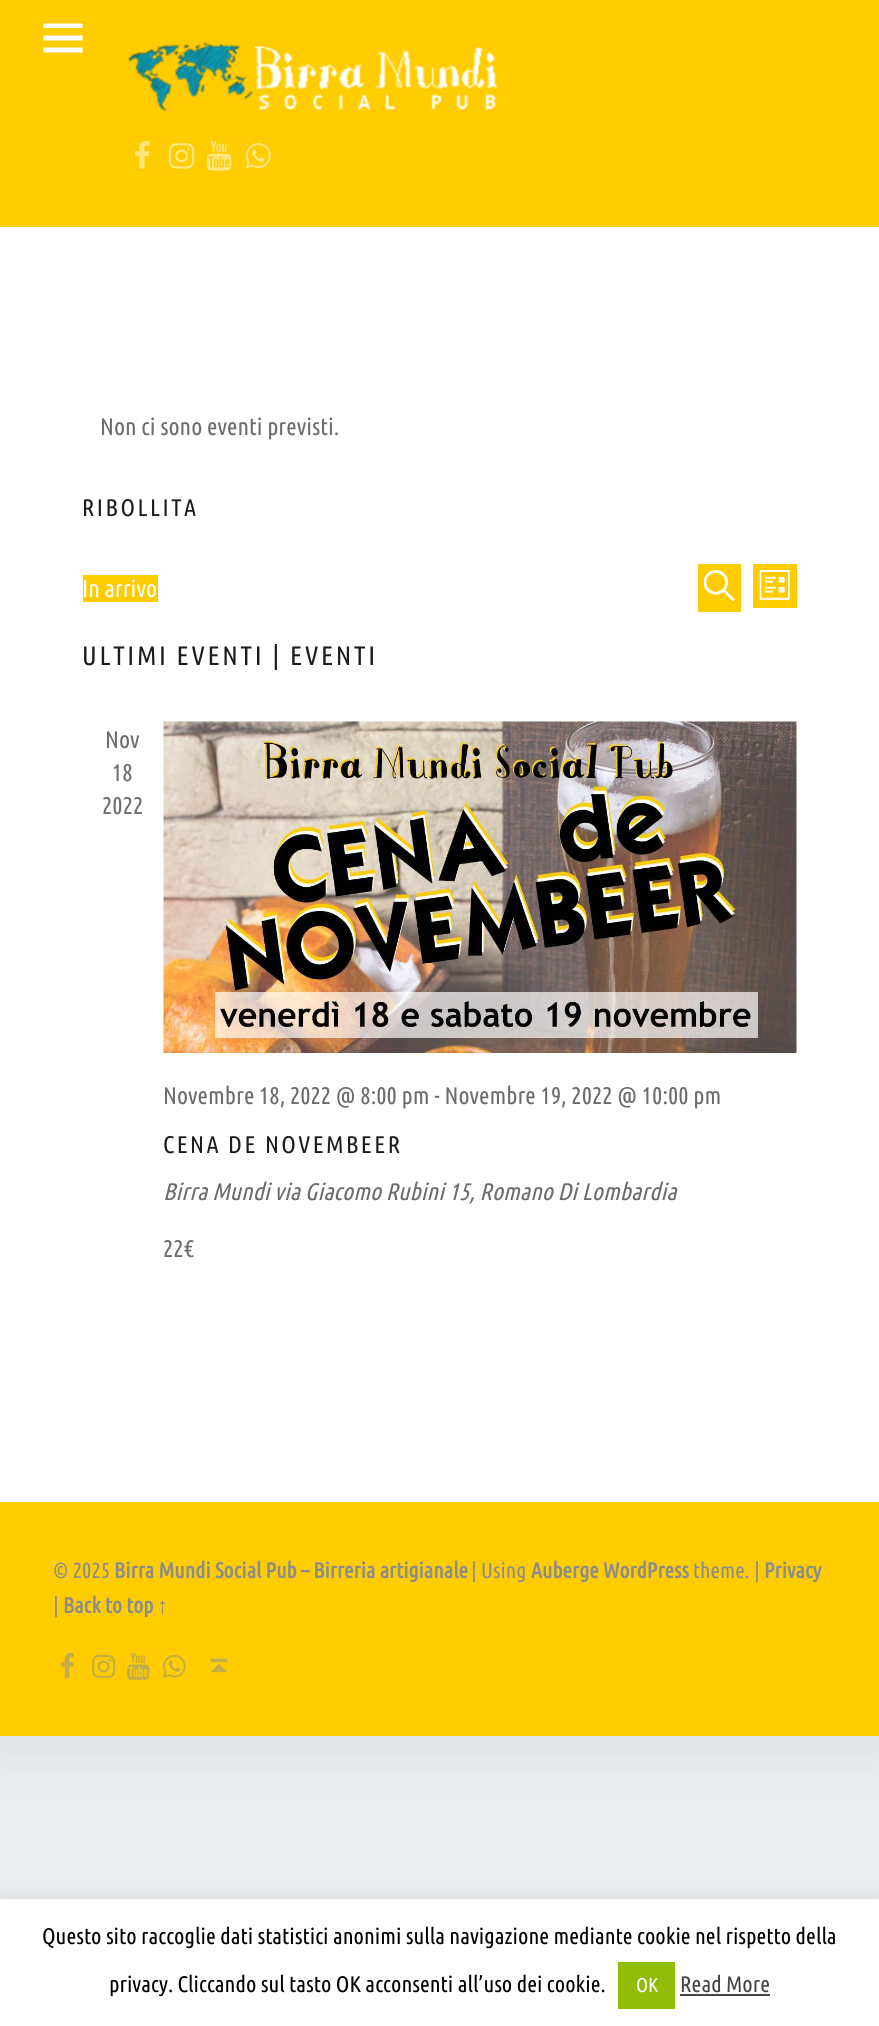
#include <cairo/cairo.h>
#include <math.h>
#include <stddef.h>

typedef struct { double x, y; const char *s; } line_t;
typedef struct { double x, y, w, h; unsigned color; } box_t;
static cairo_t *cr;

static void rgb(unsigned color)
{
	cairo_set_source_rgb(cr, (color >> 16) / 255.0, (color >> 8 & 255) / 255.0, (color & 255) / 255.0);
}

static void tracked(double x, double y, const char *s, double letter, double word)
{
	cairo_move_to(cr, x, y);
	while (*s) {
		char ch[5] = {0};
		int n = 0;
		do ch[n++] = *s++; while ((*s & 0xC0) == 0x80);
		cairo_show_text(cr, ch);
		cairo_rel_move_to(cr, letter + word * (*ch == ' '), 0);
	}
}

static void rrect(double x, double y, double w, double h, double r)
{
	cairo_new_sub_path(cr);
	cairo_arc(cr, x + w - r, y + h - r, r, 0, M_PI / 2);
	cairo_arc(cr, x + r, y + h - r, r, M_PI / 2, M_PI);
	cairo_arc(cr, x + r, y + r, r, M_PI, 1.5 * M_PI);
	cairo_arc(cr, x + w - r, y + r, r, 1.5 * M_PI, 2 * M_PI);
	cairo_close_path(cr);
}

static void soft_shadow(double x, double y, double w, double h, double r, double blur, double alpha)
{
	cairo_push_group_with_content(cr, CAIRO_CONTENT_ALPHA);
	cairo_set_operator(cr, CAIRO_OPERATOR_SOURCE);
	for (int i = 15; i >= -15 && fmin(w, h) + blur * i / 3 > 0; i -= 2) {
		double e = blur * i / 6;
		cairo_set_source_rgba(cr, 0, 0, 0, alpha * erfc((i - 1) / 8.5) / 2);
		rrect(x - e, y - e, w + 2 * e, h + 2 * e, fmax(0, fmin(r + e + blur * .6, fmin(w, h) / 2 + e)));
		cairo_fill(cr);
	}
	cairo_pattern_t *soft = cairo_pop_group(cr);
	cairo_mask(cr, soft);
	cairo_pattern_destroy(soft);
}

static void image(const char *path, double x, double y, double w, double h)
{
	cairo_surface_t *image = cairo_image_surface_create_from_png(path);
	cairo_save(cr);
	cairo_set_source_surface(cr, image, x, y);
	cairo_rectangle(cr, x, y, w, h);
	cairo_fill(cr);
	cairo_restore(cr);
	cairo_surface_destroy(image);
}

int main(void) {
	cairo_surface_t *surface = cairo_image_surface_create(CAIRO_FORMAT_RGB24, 879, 2026);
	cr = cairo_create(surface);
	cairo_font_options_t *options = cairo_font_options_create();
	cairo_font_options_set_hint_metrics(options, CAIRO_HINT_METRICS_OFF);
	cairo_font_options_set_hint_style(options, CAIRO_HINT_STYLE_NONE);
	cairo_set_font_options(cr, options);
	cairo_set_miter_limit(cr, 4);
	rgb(0xeaecee);
	cairo_paint(cr);
	rgb(0x000000);
	soft_shadow(0, 0, 879, 1736, 0, 43.5, 0.07);
	rgb(0xffffff);
	cairo_rectangle(cr, 0, 227, 879, 1275);
	cairo_fill(cr);
	rgb(0xffcc00);
	cairo_rectangle(cr, 0, 0, 879, 227);
	cairo_fill(cr);
	rgb(0xffffff);
	cairo_new_path(cr);
	cairo_move_to(cr, 43.5, 52.5);
	cairo_line_to(cr, 43.5, 47.5);
	cairo_line_to(cr, 82.5, 47.5);
	cairo_line_to(cr, 82.5, 52.5);
	cairo_close_path(cr);
	cairo_move_to(cr, 43.5, 23.5);
	cairo_line_to(cr, 82.5, 23.5);
	cairo_line_to(cr, 82.5, 28);
	cairo_line_to(cr, 43.5, 28);
	cairo_close_path(cr);
	cairo_move_to(cr, 43.5, 40.5);
	cairo_line_to(cr, 43.5, 35.5);
	cairo_line_to(cr, 82.5, 35.5);
	cairo_line_to(cr, 82.5, 40.5);
	cairo_close_path(cr);
	cairo_fill(cr);
	image("img/1.png", 127, 41, 370, 71);
	image("img/2.png", 135, 141, 15, 28);
	image("img/3.png", 168, 143, 27, 26);
	image("img/4.png", 206, 141, 26, 30);
	image("img/5.png", 245, 143, 26, 26);
	rgb(0xffcc00);
	cairo_rectangle(cr, 83, 575, 75, 27);
	cairo_fill(cr);
	cairo_rectangle(cr, 698, 564, 43, 48);
	cairo_fill(cr);
	image("img/6.png", 704, 570, 31, 32);
	cairo_rectangle(cr, 753, 564, 44, 44);
	cairo_fill(cr);
	image("img/7.png", 759, 570, 31, 30);
	image("img/8.png", 163, 721, 634, 332);
	cairo_rectangle(cr, 0, 1502, 879, 234);
	cairo_fill(cr);
	image("img/9.png", 60, 1653, 14, 25);
	image("img/10.png", 92, 1654, 24, 24);
	image("img/11.png", 127, 1653, 23, 27);
	image("img/12.png", 162, 1654, 24, 24);
	image("img/13.png", 210, 1658, 18, 15);
	rgb(0xacabab);
	soft_shadow(0, 1898, 879, 127, 0, 7.5, 0.3);
	{
		static const box_t items[] = {
			{0, 1899, 879, 127, 0xffffff},
			{618, 1962, 57, 47, 0x91bd09},
			{680, 1994, 90, 2, 0x444444},
		};
		for (size_t i = 0; i < sizeof items / sizeof *items; i++) {
			rgb(items[i].color);
			cairo_rectangle(cr, items[i].x, items[i].y, items[i].w, items[i].h);
			cairo_fill(cr);
		}
	}
	cairo_select_font_face(cr, "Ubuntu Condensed", CAIRO_FONT_SLANT_NORMAL, CAIRO_FONT_WEIGHT_NORMAL);
	cairo_set_font_size(cr, 24);
	rgb(0x6a6c6e);
	cairo_move_to(cr, 100, 435);
	cairo_show_text(cr, "Non ci sono eventi previsti.");
	rgb(0x1a1c1e);
	tracked(82, 516, "RIBOLLITA", 2.5, 0);
	rgb(0xffffff);
	cairo_move_to(cr, 82, 597);
	cairo_show_text(cr, "In arrivo");
	cairo_set_font_size(cr, 26.75);
	rgb(0x1a1c1e);
	tracked(82, 665, "ULTIMI EVENTI | EVENTI", 2.7, 0);
	cairo_set_font_size(cr, 24);
	rgb(0x6a6c6e);
	{
		static const line_t items[] = {
			{105, 748, "Nov"},
			{112, 781, "18"},
			{102, 814, "2022"},
			{163, 1104, "Novembre 18, 2022 @ 8:00 pm - Novembre 19, 2022 @ 10:00 pm"},
		};
		for (size_t i = 0; i < sizeof items / sizeof *items; i++) {
			cairo_move_to(cr, items[i].x, items[i].y);
			cairo_show_text(cr, items[i].s);
		}
	}
	cairo_set_font_size(cr, 24.1);
	rgb(0x1a1c1e);
	tracked(163, 1153, "CENA DE NOVEMBEER", 2.4, 0);
	cairo_select_font_face(cr, "Ubuntu Condensed", CAIRO_FONT_SLANT_ITALIC, CAIRO_FONT_WEIGHT_NORMAL);
	cairo_set_font_size(cr, 24);
	rgb(0x6a6c6e);
	cairo_move_to(cr, 163, 1200);
	cairo_show_text(cr, "Birra Mundi via Giacomo Rubini 15, Romano Di Lombardia");
	cairo_select_font_face(cr, "Ubuntu Condensed", CAIRO_FONT_SLANT_NORMAL, CAIRO_FONT_WEIGHT_NORMAL);
	cairo_move_to(cr, 163, 1257);
	cairo_show_text(cr, "22€");
	cairo_set_font_size(cr, 21.75);
	rgb(0x8a8c8e);
	cairo_move_to(cr, 53, 1578);
	cairo_show_text(cr, "© 2025");
	cairo_select_font_face(cr, "Ubuntu Condensed", CAIRO_FONT_SLANT_NORMAL, CAIRO_FONT_WEIGHT_BOLD);
	cairo_move_to(cr, 114, 1578);
	cairo_show_text(cr, "Birra Mundi Social Pub – Birreria artigianale");
	cairo_select_font_face(cr, "Ubuntu Condensed", CAIRO_FONT_SLANT_NORMAL, CAIRO_FONT_WEIGHT_NORMAL);
	cairo_move_to(cr, 471, 1578);
	cairo_show_text(cr, "| Using");
	cairo_select_font_face(cr, "Ubuntu Condensed", CAIRO_FONT_SLANT_NORMAL, CAIRO_FONT_WEIGHT_BOLD);
	cairo_move_to(cr, 531, 1578);
	cairo_show_text(cr, "Auberge WordPress");
	cairo_select_font_face(cr, "Ubuntu Condensed", CAIRO_FONT_SLANT_NORMAL, CAIRO_FONT_WEIGHT_NORMAL);
	cairo_move_to(cr, 693, 1578);
	cairo_show_text(cr, "theme. |");
	cairo_select_font_face(cr, "Ubuntu Condensed", CAIRO_FONT_SLANT_NORMAL, CAIRO_FONT_WEIGHT_BOLD);
	cairo_move_to(cr, 764, 1578);
	cairo_show_text(cr, "Privacy");
	cairo_select_font_face(cr, "Ubuntu Condensed", CAIRO_FONT_SLANT_NORMAL, CAIRO_FONT_WEIGHT_NORMAL);
	cairo_move_to(cr, 53, 1613);
	cairo_show_text(cr, "|");
	cairo_select_font_face(cr, "Ubuntu Condensed", CAIRO_FONT_SLANT_NORMAL, CAIRO_FONT_WEIGHT_BOLD);
	cairo_move_to(cr, 63, 1613);
	cairo_show_text(cr, "Back to top");
	cairo_select_font_face(cr, "Liberation Serif", CAIRO_FONT_SLANT_NORMAL, CAIRO_FONT_WEIGHT_BOLD);
	cairo_move_to(cr, 157, 1613);
	cairo_show_text(cr, "↑");
	cairo_select_font_face(cr, "Ubuntu Condensed", CAIRO_FONT_SLANT_NORMAL, CAIRO_FONT_WEIGHT_NORMAL);
	cairo_set_font_size(cr, 22.5);
	rgb(0x000000);
	cairo_move_to(cr, 42, 1944);
	cairo_show_text(cr, "Questo sito raccoglie dati statistici anonimi sulla navigazione mediante cookie nel rispetto della");
	cairo_move_to(cr, 109, 1992);
	cairo_show_text(cr, "privacy. Cliccando sul tasto OK acconsenti all’uso dei cookie.");
	cairo_set_font_size(cr, 20);
	rgb(0xffffff);
	cairo_move_to(cr, 636, 1992);
	cairo_show_text(cr, "OK");
	cairo_set_font_size(cr, 22.5);
	rgb(0x444444);
	cairo_move_to(cr, 680, 1992);
	cairo_show_text(cr, "Read More");
	cairo_surface_write_to_png(surface, "page.png");
	cairo_font_options_destroy(options);
	cairo_destroy(cr);
	cairo_surface_destroy(surface);
	return 0;
}
